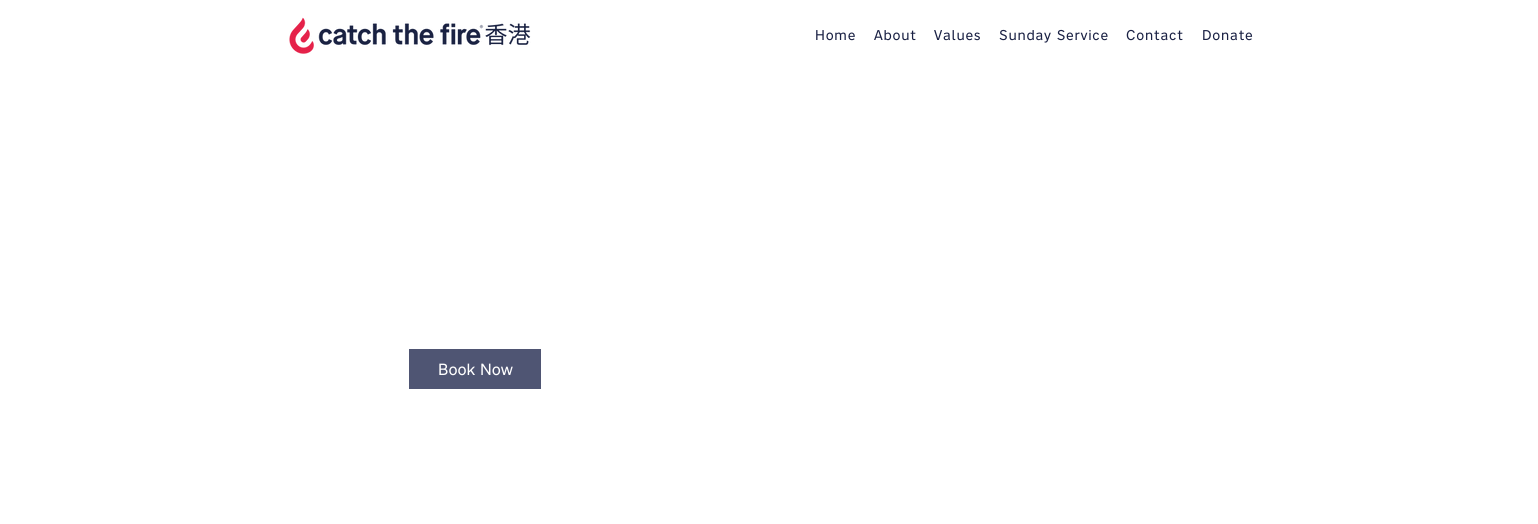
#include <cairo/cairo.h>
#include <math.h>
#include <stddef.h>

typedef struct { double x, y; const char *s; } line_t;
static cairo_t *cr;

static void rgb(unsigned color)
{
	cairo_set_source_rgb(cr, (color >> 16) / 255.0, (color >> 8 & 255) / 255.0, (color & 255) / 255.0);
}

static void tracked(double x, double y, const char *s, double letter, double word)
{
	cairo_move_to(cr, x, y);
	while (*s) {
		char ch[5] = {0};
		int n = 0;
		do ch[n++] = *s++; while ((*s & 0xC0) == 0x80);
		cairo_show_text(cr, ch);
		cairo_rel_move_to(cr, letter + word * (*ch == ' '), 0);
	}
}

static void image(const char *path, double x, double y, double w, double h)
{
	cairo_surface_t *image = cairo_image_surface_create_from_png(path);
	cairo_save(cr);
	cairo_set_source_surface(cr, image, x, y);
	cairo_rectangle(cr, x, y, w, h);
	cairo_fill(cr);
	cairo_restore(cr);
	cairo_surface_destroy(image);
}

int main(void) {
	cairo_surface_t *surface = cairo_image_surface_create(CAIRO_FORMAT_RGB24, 1538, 524);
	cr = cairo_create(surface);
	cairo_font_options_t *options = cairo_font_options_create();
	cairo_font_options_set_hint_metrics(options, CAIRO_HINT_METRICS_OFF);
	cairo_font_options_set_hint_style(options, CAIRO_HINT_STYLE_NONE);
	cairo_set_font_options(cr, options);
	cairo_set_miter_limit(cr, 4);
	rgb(0xffffff);
	cairo_paint(cr);
	image("img/1.png", 289, 17, 242, 37);
	rgb(0x4f5573);
	cairo_rectangle(cr, 409, 349, 132, 40);
	cairo_fill(cr);
	cairo_select_font_face(cr, "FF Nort", CAIRO_FONT_SLANT_NORMAL, CAIRO_FONT_WEIGHT_NORMAL);
	cairo_set_font_size(cr, 14);
	rgb(0x1a2144);
	{
		static const line_t items[] = {
			{815, 40, "Home"},
			{874, 40, "About"},
			{934, 40, "Values"},
			{999, 40, "Sunday Service"},
			{1126, 40, "Contact"},
			{1202, 40, "Donate"},
		};
		for (size_t i = 0; i < sizeof items / sizeof *items; i++) {
			tracked(items[i].x, items[i].y, items[i].s, 0.75, 0);
		}
	}
	cairo_set_font_size(cr, 16);
	rgb(0xffffff);
	cairo_move_to(cr, 438, 375);
	cairo_show_text(cr, "Book Now");
	cairo_surface_write_to_png(surface, "page.png");
	cairo_font_options_destroy(options);
	cairo_destroy(cr);
	cairo_surface_destroy(surface);
	return 0;
}
